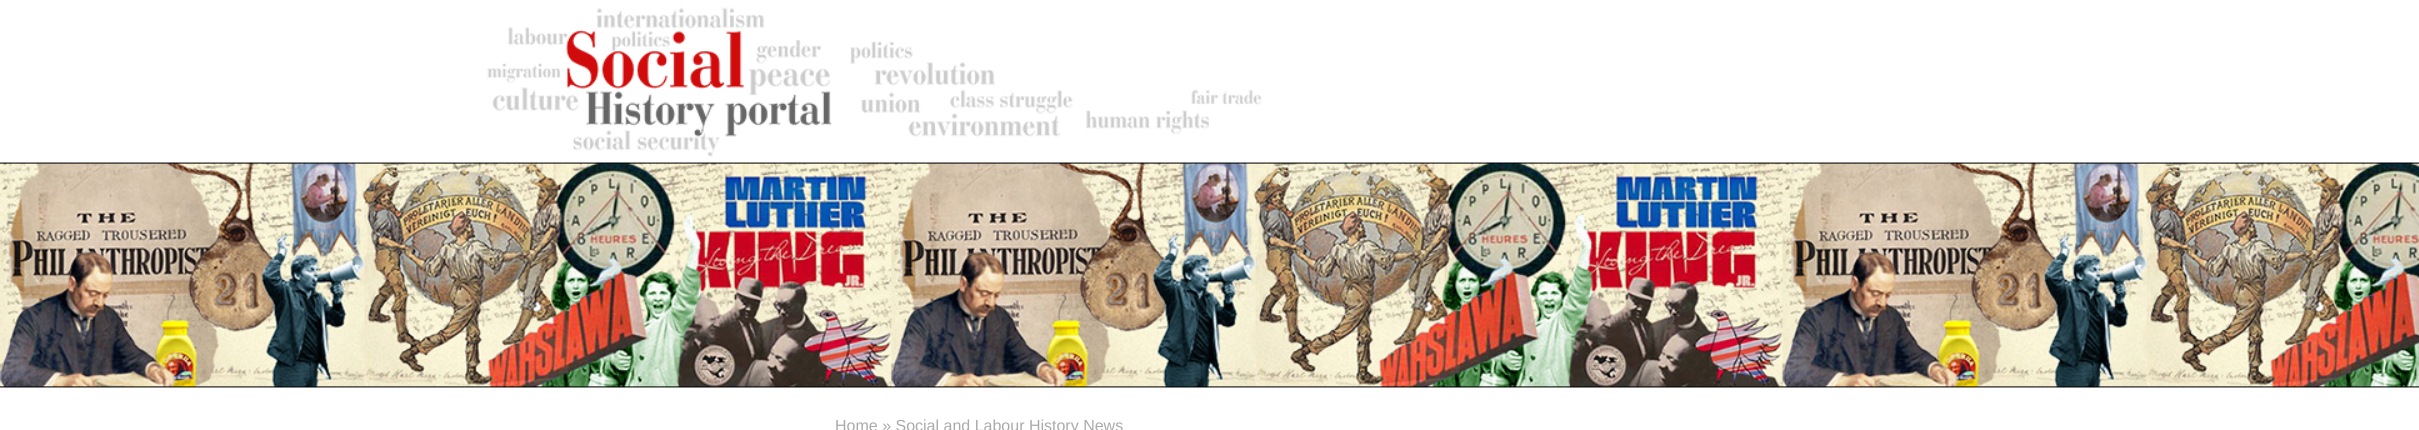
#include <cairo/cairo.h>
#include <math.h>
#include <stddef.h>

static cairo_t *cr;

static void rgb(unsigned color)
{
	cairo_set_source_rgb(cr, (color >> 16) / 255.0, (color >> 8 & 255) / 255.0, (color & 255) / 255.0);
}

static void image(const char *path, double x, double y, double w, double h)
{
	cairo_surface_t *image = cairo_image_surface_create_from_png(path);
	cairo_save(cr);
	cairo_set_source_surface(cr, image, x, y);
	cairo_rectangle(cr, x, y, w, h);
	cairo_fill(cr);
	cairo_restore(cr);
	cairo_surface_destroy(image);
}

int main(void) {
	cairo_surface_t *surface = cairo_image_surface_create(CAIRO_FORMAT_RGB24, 2419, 430);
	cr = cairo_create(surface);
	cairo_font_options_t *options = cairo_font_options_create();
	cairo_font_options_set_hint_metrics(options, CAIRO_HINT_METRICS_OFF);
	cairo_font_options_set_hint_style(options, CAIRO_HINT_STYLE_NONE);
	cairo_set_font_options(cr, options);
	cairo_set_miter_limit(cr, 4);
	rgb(0xffffff);
	cairo_paint(cr);
	image("img/1.png", 0, 162, 2419, 226);
	image("img/2.png", 486, 7, 776, 150);
	cairo_select_font_face(cr, "Liberation Sans", CAIRO_FONT_SLANT_NORMAL, CAIRO_FONT_WEIGHT_NORMAL);
	cairo_set_font_size(cr, 16);
	rgb(0xaaaaaa);
	cairo_move_to(cr, 835, 431);
	cairo_show_text(cr, "Home » Social and Labour History News");
	cairo_surface_write_to_png(surface, "page.png");
	cairo_font_options_destroy(options);
	cairo_destroy(cr);
	cairo_surface_destroy(surface);
	return 0;
}
